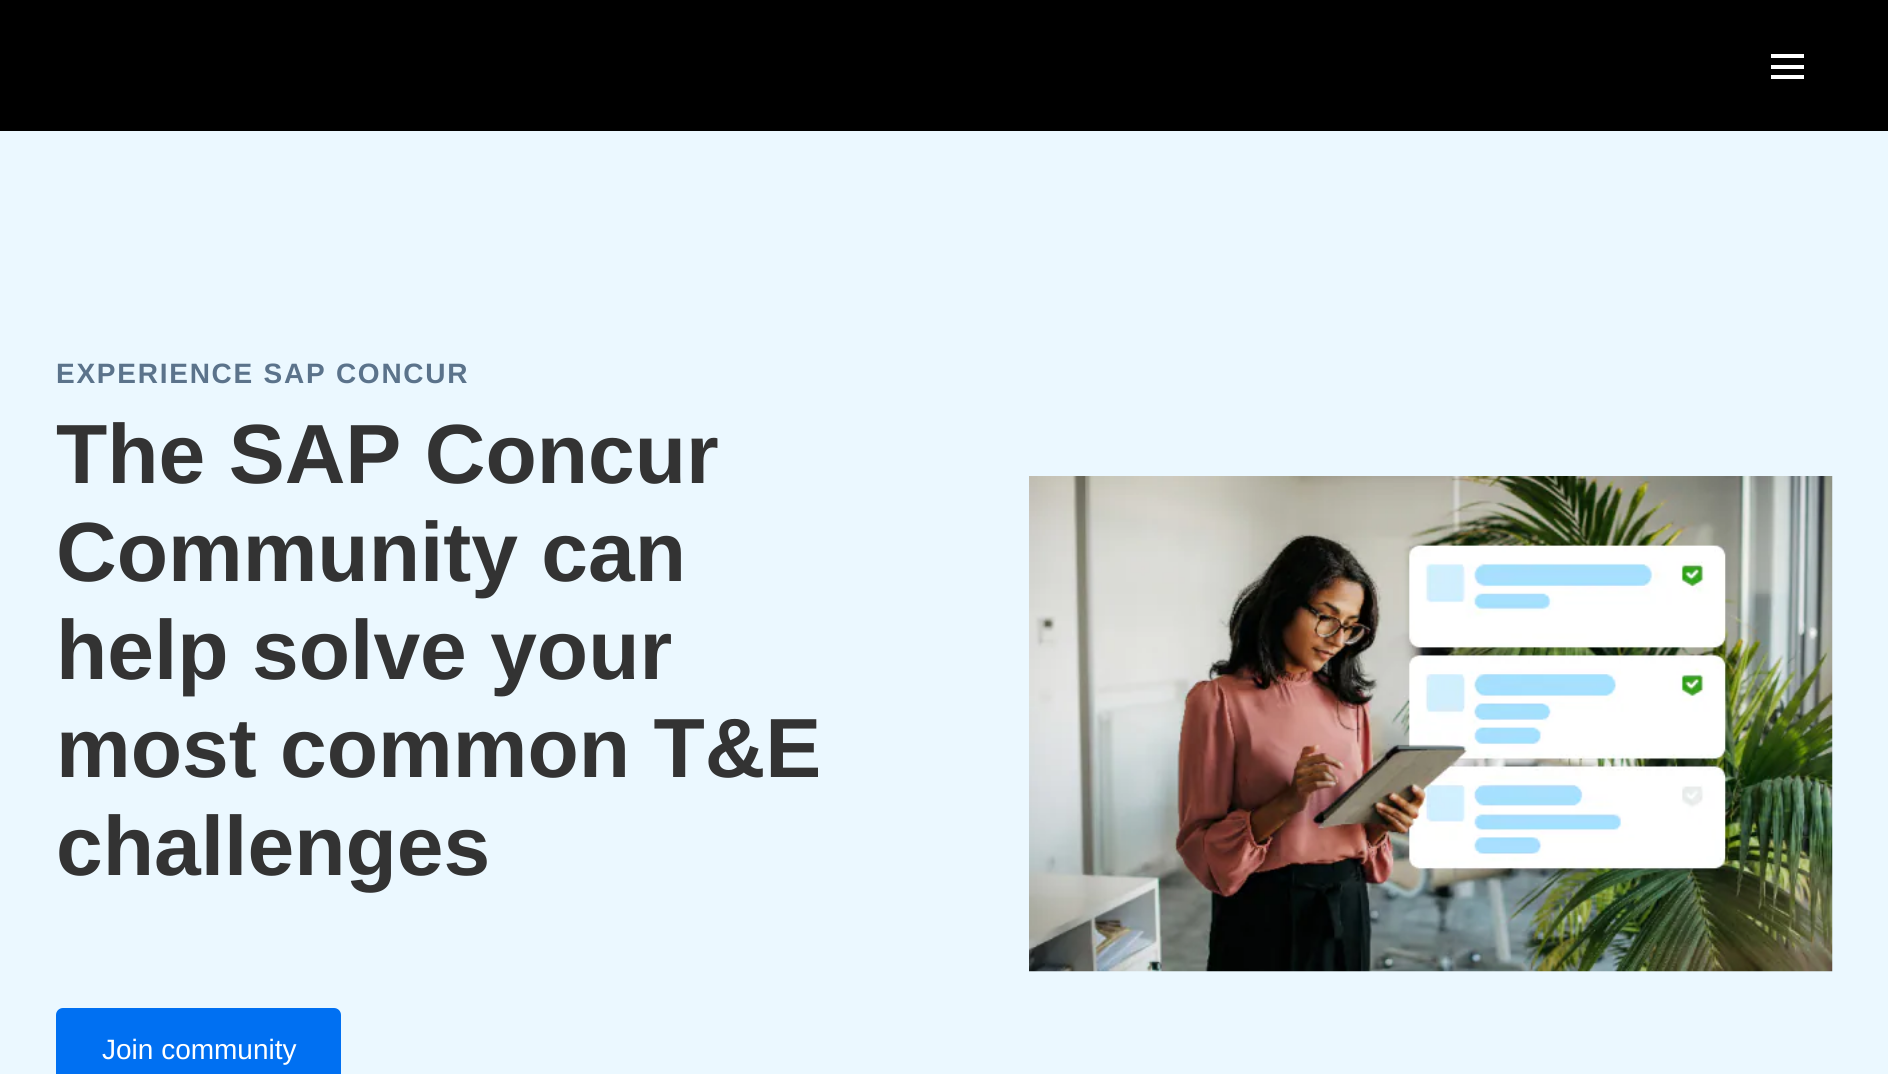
#include <cairo/cairo.h>
#include <math.h>
#include <stddef.h>

typedef struct { double x, y; const char *s; } line_t;
typedef struct { double x, y, w, h; unsigned color; } box_t;
static cairo_t *cr;

static void rgb(unsigned color)
{
	cairo_set_source_rgb(cr, (color >> 16) / 255.0, (color >> 8 & 255) / 255.0, (color & 255) / 255.0);
}

static void tracked(double x, double y, const char *s, double letter, double word)
{
	cairo_move_to(cr, x, y);
	while (*s) {
		char ch[5] = {0};
		int n = 0;
		do ch[n++] = *s++; while ((*s & 0xC0) == 0x80);
		cairo_show_text(cr, ch);
		cairo_rel_move_to(cr, letter + word * (*ch == ' '), 0);
	}
}

static void rrect(double x, double y, double w, double h, double r)
{
	cairo_new_sub_path(cr);
	cairo_arc(cr, x + w - r, y + h - r, r, 0, M_PI / 2);
	cairo_arc(cr, x + r, y + h - r, r, M_PI / 2, M_PI);
	cairo_arc(cr, x + r, y + r, r, M_PI, 1.5 * M_PI);
	cairo_arc(cr, x + w - r, y + r, r, 1.5 * M_PI, 2 * M_PI);
	cairo_close_path(cr);
}

static void image(const char *path, double x, double y, double w, double h)
{
	cairo_surface_t *image = cairo_image_surface_create_from_png(path);
	cairo_save(cr);
	cairo_set_source_surface(cr, image, x, y);
	cairo_rectangle(cr, x, y, w, h);
	cairo_fill(cr);
	cairo_restore(cr);
	cairo_surface_destroy(image);
}

int main(void) {
	cairo_surface_t *surface = cairo_image_surface_create(CAIRO_FORMAT_RGB24, 1888, 1074);
	cr = cairo_create(surface);
	cairo_font_options_t *options = cairo_font_options_create();
	cairo_font_options_set_hint_metrics(options, CAIRO_HINT_METRICS_OFF);
	cairo_font_options_set_hint_style(options, CAIRO_HINT_STYLE_NONE);
	cairo_set_font_options(cr, options);
	cairo_set_miter_limit(cr, 4);
	rgb(0xebf8ff);
	cairo_paint(cr);
	{
		static const box_t items[] = {
			{0, 0, 1888, 131, 0x000000},
			{1771, 65, 33, 4, 0xffffff},
			{1771, 54, 33, 4, 0xffffff},
			{1771, 75, 33, 4, 0xffffff},
		};
		for (size_t i = 0; i < sizeof items / sizeof *items; i++) {
			rgb(items[i].color);
			cairo_rectangle(cr, items[i].x, items[i].y, items[i].w, items[i].h);
			cairo_fill(cr);
		}
	}
	rgb(0x0070f2);
	rrect(58, 1010, 281, 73, 5);
	cairo_fill_preserve(cr);
	cairo_set_line_width(cr, 4);
	cairo_stroke(cr);
	image("img/1.png", 1029, 476, 804, 496);
	cairo_select_font_face(cr, "Liberation Sans", CAIRO_FONT_SLANT_NORMAL, CAIRO_FONT_WEIGHT_BOLD);
	cairo_set_font_size(cr, 28);
	rgb(0x5b738b);
	tracked(56, 383, "EXPERIENCE SAP CONCUR", 1.75, 0);
	cairo_set_font_size(cr, 84);
	rgb(0x333333);
	{
		static const line_t items[] = {
			{56, 483, "The SAP Concur"},
			{56, 581, "Community can"},
			{56, 679, "help solve your"},
			{56, 777, "most common T&E"},
			{56, 875, "challenges"},
		};
		for (size_t i = 0; i < sizeof items / sizeof *items; i++) {
			cairo_move_to(cr, items[i].x, items[i].y);
			cairo_show_text(cr, items[i].s);
		}
	}
	cairo_select_font_face(cr, "Liberation Sans", CAIRO_FONT_SLANT_NORMAL, CAIRO_FONT_WEIGHT_NORMAL);
	cairo_set_font_size(cr, 28);
	rgb(0xffffff);
	cairo_move_to(cr, 102, 1059);
	cairo_show_text(cr, "Join community");
	cairo_surface_write_to_png(surface, "page.png");
	cairo_font_options_destroy(options);
	cairo_destroy(cr);
	cairo_surface_destroy(surface);
	return 0;
}
